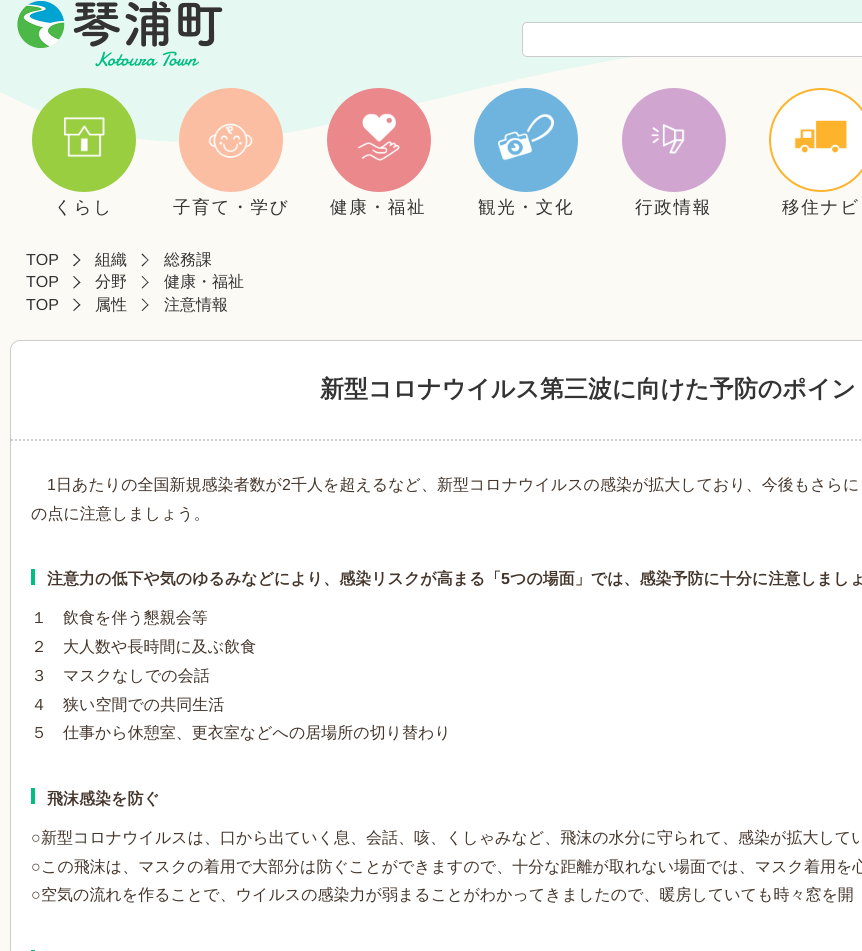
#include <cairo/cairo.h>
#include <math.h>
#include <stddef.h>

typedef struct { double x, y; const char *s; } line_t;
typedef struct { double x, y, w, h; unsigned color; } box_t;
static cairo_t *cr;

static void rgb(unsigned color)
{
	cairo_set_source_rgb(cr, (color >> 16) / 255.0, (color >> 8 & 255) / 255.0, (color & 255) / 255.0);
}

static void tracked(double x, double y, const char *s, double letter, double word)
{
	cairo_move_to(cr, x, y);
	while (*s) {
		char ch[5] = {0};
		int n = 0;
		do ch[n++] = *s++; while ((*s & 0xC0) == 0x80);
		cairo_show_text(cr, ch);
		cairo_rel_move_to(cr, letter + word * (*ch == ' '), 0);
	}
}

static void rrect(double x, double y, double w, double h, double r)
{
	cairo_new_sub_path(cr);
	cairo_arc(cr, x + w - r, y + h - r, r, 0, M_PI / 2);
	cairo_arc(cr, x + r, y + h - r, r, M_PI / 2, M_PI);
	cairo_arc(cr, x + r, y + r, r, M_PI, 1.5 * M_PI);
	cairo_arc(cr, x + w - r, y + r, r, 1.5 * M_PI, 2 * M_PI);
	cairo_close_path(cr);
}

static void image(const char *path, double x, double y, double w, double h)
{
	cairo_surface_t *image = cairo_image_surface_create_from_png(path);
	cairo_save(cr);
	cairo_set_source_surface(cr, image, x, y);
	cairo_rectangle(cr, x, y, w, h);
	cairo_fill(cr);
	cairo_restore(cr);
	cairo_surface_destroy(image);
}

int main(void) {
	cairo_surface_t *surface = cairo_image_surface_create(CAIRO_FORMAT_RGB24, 862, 951);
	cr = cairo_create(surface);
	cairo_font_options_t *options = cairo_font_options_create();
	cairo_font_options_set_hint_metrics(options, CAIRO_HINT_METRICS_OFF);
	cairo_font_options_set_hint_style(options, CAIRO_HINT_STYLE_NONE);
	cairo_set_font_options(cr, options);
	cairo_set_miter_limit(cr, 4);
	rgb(0xfbfaf5);
	cairo_paint(cr);
	image("img/1.png", 0, 0, 862, 142);
	image("img/2.png", 17, 0, 206, 67);
	rgb(0xffffff);
	rrect(522.5, 22.5, 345, 34, 4.5);
	cairo_fill_preserve(cr);
	rgb(0xcccccc);
	cairo_set_line_width(cr, 1);
	cairo_stroke(cr);
	rgb(0x9ace41);
	cairo_arc(cr, 84, 140, 51, 0, 2 * M_PI);
	cairo_fill_preserve(cr);
	cairo_set_line_width(cr, 2);
	cairo_stroke(cr);
	image("img/3.png", 64, 117, 41, 40);
	rgb(0xfbbea2);
	cairo_arc(cr, 231, 140, 51, 0, 2 * M_PI);
	cairo_fill_preserve(cr);
	cairo_stroke(cr);
	image("img/4.png", 208, 123, 45, 35);
	rgb(0xea888c);
	cairo_arc(cr, 379, 140, 51, 0, 2 * M_PI);
	cairo_fill_preserve(cr);
	cairo_stroke(cr);
	image("img/5.png", 358, 113, 42, 48);
	rgb(0x6eb4de);
	cairo_arc(cr, 526, 140, 51, 0, 2 * M_PI);
	cairo_fill_preserve(cr);
	cairo_stroke(cr);
	image("img/6.png", 498, 113, 56, 48);
	rgb(0xd0a6d1);
	cairo_arc(cr, 674, 140, 51, 0, 2 * M_PI);
	cairo_fill_preserve(cr);
	cairo_stroke(cr);
	image("img/7.png", 651, 124, 34, 30);
	rgb(0xffffff);
	cairo_arc(cr, 821, 140, 51, 0, 2 * M_PI);
	cairo_fill_preserve(cr);
	rgb(0xfdb32b);
	cairo_stroke(cr);
	image("img/8.png", 794, 120, 53, 33);
	rgb(0x333333);
	cairo_new_path(cr);
	cairo_move_to(cr, 74, 253.5);
	cairo_line_to(cr, 80.5, 260);
	cairo_line_to(cr, 79.5, 260.5);
	cairo_line_to(cr, 73, 254.5);
	cairo_close_path(cr);
	cairo_fill(cr);
	cairo_new_path(cr);
	cairo_move_to(cr, 79.5, 259.5);
	cairo_line_to(cr, 80.5, 260);
	cairo_line_to(cr, 74, 266.5);
	cairo_line_to(cr, 73, 265.5);
	cairo_close_path(cr);
	cairo_fill(cr);
	cairo_new_path(cr);
	cairo_move_to(cr, 142.5, 253.5);
	cairo_line_to(cr, 148.5, 260);
	cairo_line_to(cr, 148, 260.5);
	cairo_line_to(cr, 141.5, 254.5);
	cairo_close_path(cr);
	cairo_fill(cr);
	cairo_new_path(cr);
	cairo_move_to(cr, 148, 259.5);
	cairo_line_to(cr, 148.5, 260);
	cairo_line_to(cr, 142.5, 266.5);
	cairo_line_to(cr, 141.5, 265.5);
	cairo_close_path(cr);
	cairo_fill(cr);
	cairo_new_path(cr);
	cairo_move_to(cr, 74, 276);
	cairo_line_to(cr, 80.5, 282.5);
	cairo_line_to(cr, 79.5, 283);
	cairo_line_to(cr, 73, 276.5);
	cairo_close_path(cr);
	cairo_fill(cr);
	cairo_new_path(cr);
	cairo_move_to(cr, 79.5, 281.5);
	cairo_line_to(cr, 80.5, 282.5);
	cairo_line_to(cr, 74, 288.5);
	cairo_line_to(cr, 73, 288);
	cairo_close_path(cr);
	cairo_fill(cr);
	cairo_new_path(cr);
	cairo_move_to(cr, 142.5, 276);
	cairo_line_to(cr, 148.5, 282.5);
	cairo_line_to(cr, 148, 283);
	cairo_line_to(cr, 141.5, 276.5);
	cairo_close_path(cr);
	cairo_fill(cr);
	cairo_new_path(cr);
	cairo_move_to(cr, 148, 281.5);
	cairo_line_to(cr, 148.5, 282.5);
	cairo_line_to(cr, 142.5, 288.5);
	cairo_line_to(cr, 141.5, 288);
	cairo_close_path(cr);
	cairo_fill(cr);
	cairo_new_path(cr);
	cairo_move_to(cr, 74, 298.5);
	cairo_line_to(cr, 80.5, 305);
	cairo_line_to(cr, 79.5, 305.5);
	cairo_line_to(cr, 73, 299);
	cairo_close_path(cr);
	cairo_fill(cr);
	cairo_new_path(cr);
	cairo_move_to(cr, 79.5, 304);
	cairo_line_to(cr, 80.5, 305);
	cairo_line_to(cr, 74, 311);
	cairo_line_to(cr, 73, 310.5);
	cairo_close_path(cr);
	cairo_fill(cr);
	cairo_new_path(cr);
	cairo_move_to(cr, 142.5, 298.5);
	cairo_line_to(cr, 148.5, 305);
	cairo_line_to(cr, 148, 305.5);
	cairo_line_to(cr, 141.5, 299);
	cairo_close_path(cr);
	cairo_fill(cr);
	cairo_new_path(cr);
	cairo_move_to(cr, 148, 304);
	cairo_line_to(cr, 148.5, 305);
	cairo_line_to(cr, 142.5, 311);
	cairo_line_to(cr, 141.5, 310.5);
	cairo_close_path(cr);
	cairo_fill(cr);
	rgb(0xffffff);
	rrect(10.5, 340.5, 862, 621, 9.5);
	cairo_fill_preserve(cr);
	rgb(0xcccccc);
	cairo_set_line_width(cr, 1);
	cairo_stroke(cr);
	cairo_new_path(cr);
	cairo_move_to(cr, 11, 440);
	cairo_line_to(cr, 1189, 440);
	cairo_set_line_width(cr, 2);
	cairo_set_dash(cr, (double[]){2, 2}, 2, 0);
	cairo_stroke(cr);
	{
		static const box_t items[] = {
			{31, 569, 4, 16, 0x01bf81},
			{31, 788, 4, 16, 0x01bf81},
			{31, 950, 4, 1, 0x01bf81},
		};
		for (size_t i = 0; i < sizeof items / sizeof *items; i++) {
			rgb(items[i].color);
			cairo_rectangle(cr, items[i].x, items[i].y, items[i].w, items[i].h);
			cairo_fill(cr);
		}
	}
	cairo_select_font_face(cr, "WenQuanYi Zen Hei Medium", CAIRO_FONT_SLANT_NORMAL, CAIRO_FONT_WEIGHT_NORMAL);
	cairo_set_font_size(cr, 17.5);
	rgb(0x333333);
	{
		static const line_t items[] = {
			{54, 213, "くらし"},
			{173, 213, "子育て・学び"},
			{330, 213, "健康・福祉"},
			{478, 213, "観光・文化"},
			{635, 213, "行政情報"},
			{782, 213, "移住ナビ"},
		};
		for (size_t i = 0; i < sizeof items / sizeof *items; i++) {
			tracked(items[i].x, items[i].y, items[i].s, 1.75, 0);
		}
	}
	cairo_select_font_face(cr, "Liberation Sans", CAIRO_FONT_SLANT_NORMAL, CAIRO_FONT_WEIGHT_NORMAL);
	cairo_set_font_size(cr, 16);
	cairo_move_to(cr, 26, 265);
	cairo_show_text(cr, "TOP");
	cairo_select_font_face(cr, "WenQuanYi Zen Hei Medium", CAIRO_FONT_SLANT_NORMAL, CAIRO_FONT_WEIGHT_NORMAL);
	cairo_move_to(cr, 95, 265);
	cairo_show_text(cr, "組織");
	cairo_move_to(cr, 164, 265);
	cairo_show_text(cr, "総務課");
	cairo_select_font_face(cr, "Liberation Sans", CAIRO_FONT_SLANT_NORMAL, CAIRO_FONT_WEIGHT_NORMAL);
	cairo_move_to(cr, 26, 287);
	cairo_show_text(cr, "TOP");
	cairo_select_font_face(cr, "WenQuanYi Zen Hei Medium", CAIRO_FONT_SLANT_NORMAL, CAIRO_FONT_WEIGHT_NORMAL);
	cairo_move_to(cr, 95, 287);
	cairo_show_text(cr, "分野");
	cairo_move_to(cr, 164, 287);
	cairo_show_text(cr, "健康・福祉");
	cairo_select_font_face(cr, "Liberation Sans", CAIRO_FONT_SLANT_NORMAL, CAIRO_FONT_WEIGHT_NORMAL);
	cairo_move_to(cr, 26, 310);
	cairo_show_text(cr, "TOP");
	cairo_select_font_face(cr, "WenQuanYi Zen Hei Medium", CAIRO_FONT_SLANT_NORMAL, CAIRO_FONT_WEIGHT_NORMAL);
	cairo_move_to(cr, 95, 310);
	cairo_show_text(cr, "属性");
	cairo_move_to(cr, 164, 310);
	cairo_show_text(cr, "注意情報");
	cairo_select_font_face(cr, "WenQuanYi Zen Hei", CAIRO_FONT_SLANT_NORMAL, CAIRO_FONT_WEIGHT_BOLD);
	cairo_set_font_size(cr, 24);
	cairo_move_to(cr, 320, 397);
	cairo_show_text(cr, "新型コロナウイルス第三波に向けた予防のポイン");
	cairo_select_font_face(cr, "Liberation Sans", CAIRO_FONT_SLANT_NORMAL, CAIRO_FONT_WEIGHT_NORMAL);
	cairo_set_font_size(cr, 16);
	rgb(0x43352b);
	cairo_move_to(cr, 47, 490);
	cairo_show_text(cr, "1");
	cairo_select_font_face(cr, "WenQuanYi Zen Hei Medium", CAIRO_FONT_SLANT_NORMAL, CAIRO_FONT_WEIGHT_NORMAL);
	cairo_move_to(cr, 56, 490);
	cairo_show_text(cr, "日あたりの全国新規感染者数が");
	cairo_select_font_face(cr, "Liberation Sans", CAIRO_FONT_SLANT_NORMAL, CAIRO_FONT_WEIGHT_NORMAL);
	cairo_move_to(cr, 282, 490);
	cairo_show_text(cr, "2");
	cairo_select_font_face(cr, "WenQuanYi Zen Hei Medium", CAIRO_FONT_SLANT_NORMAL, CAIRO_FONT_WEIGHT_NORMAL);
	cairo_move_to(cr, 291, 490);
	cairo_show_text(cr, "千人を超えるなど、新型コロナウイルスの感染が拡大しており、今後もさらに");
	cairo_move_to(cr, 31, 519);
	cairo_show_text(cr, "の点に注意しましょう。");
	cairo_select_font_face(cr, "WenQuanYi Zen Hei", CAIRO_FONT_SLANT_NORMAL, CAIRO_FONT_WEIGHT_BOLD);
	cairo_move_to(cr, 47, 584);
	cairo_show_text(cr, "注意力の低下や気のゆるみなどにより、感染リスクが高まる「");
	cairo_select_font_face(cr, "Liberation Sans", CAIRO_FONT_SLANT_NORMAL, CAIRO_FONT_WEIGHT_BOLD);
	cairo_move_to(cr, 501, 584);
	cairo_show_text(cr, "5");
	cairo_select_font_face(cr, "WenQuanYi Zen Hei", CAIRO_FONT_SLANT_NORMAL, CAIRO_FONT_WEIGHT_BOLD);
	cairo_move_to(cr, 510, 584);
	cairo_show_text(cr, "つの場面」では、感染予防に十分に注意しましょ");
	cairo_select_font_face(cr, "WenQuanYi Zen Hei Medium", CAIRO_FONT_SLANT_NORMAL, CAIRO_FONT_WEIGHT_NORMAL);
	{
		static const line_t items[] = {
			{31, 623, "１　飲食を伴う懇親会等"},
			{31, 652, "２　大人数や長時間に及ぶ飲食"},
			{31, 681, "３　マスクなしでの会話"},
			{31, 710, "４　狭い空間での共同生活"},
			{31, 738, "５　仕事から休憩室、更衣室などへの居場所の切り替わり"},
		};
		for (size_t i = 0; i < sizeof items / sizeof *items; i++) {
			cairo_move_to(cr, items[i].x, items[i].y);
			cairo_show_text(cr, items[i].s);
		}
	}
	cairo_select_font_face(cr, "WenQuanYi Zen Hei", CAIRO_FONT_SLANT_NORMAL, CAIRO_FONT_WEIGHT_BOLD);
	cairo_move_to(cr, 47, 804);
	cairo_show_text(cr, "飛沫感染を防ぐ");
	cairo_select_font_face(cr, "Liberation Sans", CAIRO_FONT_SLANT_NORMAL, CAIRO_FONT_WEIGHT_NORMAL);
	cairo_move_to(cr, 31, 843);
	cairo_show_text(cr, "○");
	cairo_select_font_face(cr, "WenQuanYi Zen Hei Medium", CAIRO_FONT_SLANT_NORMAL, CAIRO_FONT_WEIGHT_NORMAL);
	cairo_move_to(cr, 41, 843);
	cairo_show_text(cr, "新型コロナウイルスは、口から出ていく息、会話、咳、くしゃみなど、飛沫の水分に守られて、感染が拡大してい");
	cairo_select_font_face(cr, "Liberation Sans", CAIRO_FONT_SLANT_NORMAL, CAIRO_FONT_WEIGHT_NORMAL);
	cairo_move_to(cr, 31, 872);
	cairo_show_text(cr, "○");
	cairo_select_font_face(cr, "WenQuanYi Zen Hei Medium", CAIRO_FONT_SLANT_NORMAL, CAIRO_FONT_WEIGHT_NORMAL);
	cairo_move_to(cr, 41, 872);
	cairo_show_text(cr, "この飛沫は、マスクの着用で大部分は防ぐことができますので、十分な距離が取れない場面では、マスク着用を心");
	cairo_select_font_face(cr, "Liberation Sans", CAIRO_FONT_SLANT_NORMAL, CAIRO_FONT_WEIGHT_NORMAL);
	cairo_move_to(cr, 31, 900);
	cairo_show_text(cr, "○");
	cairo_select_font_face(cr, "WenQuanYi Zen Hei Medium", CAIRO_FONT_SLANT_NORMAL, CAIRO_FONT_WEIGHT_NORMAL);
	cairo_move_to(cr, 41, 900);
	cairo_show_text(cr, "空気の流れを作ることで、ウイルスの感染力が弱まることがわかってきましたので、暖房していても時々窓を開");
	cairo_surface_write_to_png(surface, "page.png");
	cairo_font_options_destroy(options);
	cairo_destroy(cr);
	cairo_surface_destroy(surface);
	return 0;
}
